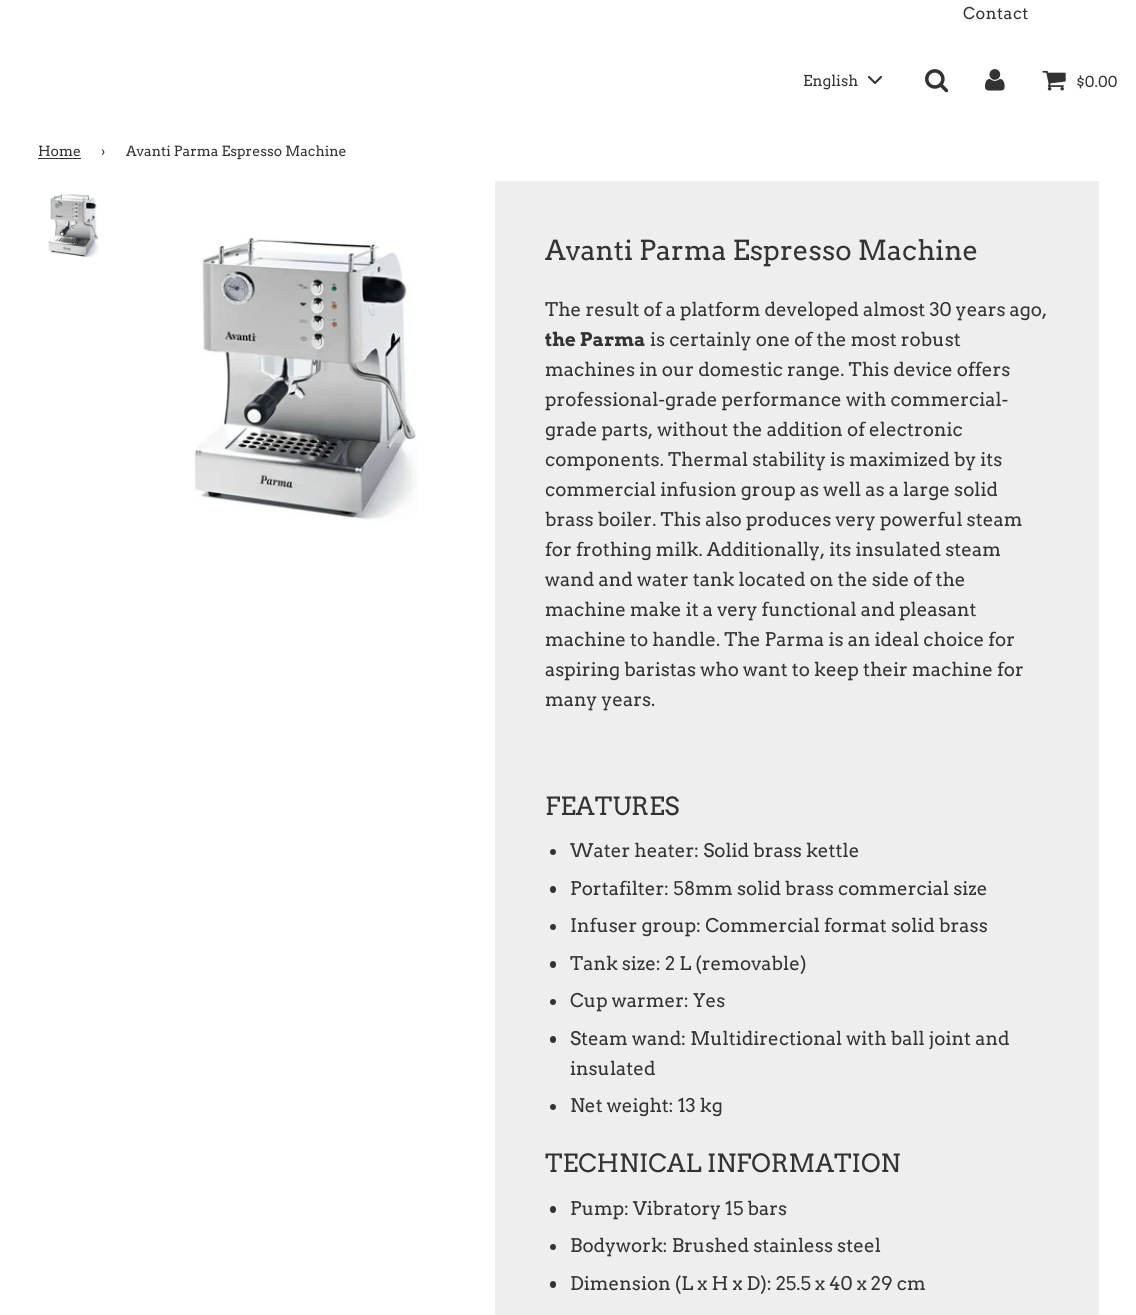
#include <cairo/cairo.h>
#include <math.h>
#include <stddef.h>

typedef struct { double x, y; const char *s; } line_t;
static cairo_t *cr;

static void rgb(unsigned color)
{
	cairo_set_source_rgb(cr, (color >> 16) / 255.0, (color >> 8 & 255) / 255.0, (color & 255) / 255.0);
}

static void tracked(double x, double y, const char *s, double letter, double word)
{
	cairo_move_to(cr, x, y);
	while (*s) {
		char ch[5] = {0};
		int n = 0;
		do ch[n++] = *s++; while ((*s & 0xC0) == 0x80);
		cairo_show_text(cr, ch);
		cairo_rel_move_to(cr, letter + word * (*ch == ' '), 0);
	}
}

static void rrect(double x, double y, double w, double h, double r)
{
	cairo_new_sub_path(cr);
	cairo_arc(cr, x + w - r, y + h - r, r, 0, M_PI / 2);
	cairo_arc(cr, x + r, y + h - r, r, M_PI / 2, M_PI);
	cairo_arc(cr, x + r, y + r, r, M_PI, 1.5 * M_PI);
	cairo_arc(cr, x + w - r, y + r, r, 1.5 * M_PI, 2 * M_PI);
	cairo_close_path(cr);
}

static void image(const char *path, double x, double y, double w, double h)
{
	cairo_surface_t *image = cairo_image_surface_create_from_png(path);
	cairo_save(cr);
	cairo_set_source_surface(cr, image, x, y);
	cairo_rectangle(cr, x, y, w, h);
	cairo_fill(cr);
	cairo_restore(cr);
	cairo_surface_destroy(image);
}

int main(void) {
	cairo_surface_t *surface = cairo_image_surface_create(CAIRO_FORMAT_RGB24, 1136, 1315);
	cr = cairo_create(surface);
	cairo_font_options_t *options = cairo_font_options_create();
	cairo_font_options_set_hint_metrics(options, CAIRO_HINT_METRICS_OFF);
	cairo_font_options_set_hint_style(options, CAIRO_HINT_STYLE_NONE);
	cairo_set_font_options(cr, options);
	cairo_set_miter_limit(cr, 4);
	rgb(0xffffff);
	cairo_paint(cr);
	cairo_new_path(cr);
	cairo_move_to(cr, 869, 77);
	cairo_line_to(cr, 875, 83);
	cairo_line_to(cr, 881, 77);
	rgb(0x333333);
	cairo_set_line_width(cr, 2.1);
	cairo_set_line_cap(cr, CAIRO_LINE_CAP_ROUND);
	cairo_set_line_join(cr, CAIRO_LINE_JOIN_ROUND);
	cairo_stroke(cr);
	image("img/1.png", 925, 69, 24, 24);
	image("img/2.png", 985, 69, 20, 22);
	image("img/3.png", 1042, 70, 24, 21);
	cairo_rectangle(cr, 38, 158, 43, 1);
	cairo_fill(cr);
	image("img/4.png", 48, 193, 51, 65);
	image("img/5.png", 195, 237, 223, 284);
	rgb(0xeeeeee);
	cairo_rectangle(cr, 495, 181, 604, 1134);
	cairo_fill(cr);
	rgb(0x333333);
	cairo_arc(cr, 553, 852, 3, 0, 2 * M_PI);
	cairo_fill(cr);
	rrect(550, 886, 6, 7, 3);
	cairo_fill(cr);
	cairo_arc(cr, 553, 927, 3, 0, 2 * M_PI);
	cairo_fill(cr);
	rrect(550, 961, 6, 7, 3);
	cairo_fill(cr);
	cairo_arc(cr, 553, 1002, 3, 0, 2 * M_PI);
	cairo_fill(cr);
	rrect(550, 1036, 6, 7, 3);
	cairo_fill(cr);
	cairo_arc(cr, 553, 1107, 3, 0, 2 * M_PI);
	cairo_fill(cr);
	rrect(550, 1206, 6, 7, 3);
	cairo_fill(cr);
	cairo_arc(cr, 553, 1247, 3, 0, 2 * M_PI);
	cairo_fill(cr);
	rrect(550, 1281, 6, 7, 3);
	cairo_fill(cr);
	cairo_select_font_face(cr, "Arvo", CAIRO_FONT_SLANT_NORMAL, CAIRO_FONT_WEIGHT_NORMAL);
	cairo_set_font_size(cr, 16.25);
	tracked(963, 19, "Contact", 0.5, 0);
	cairo_set_font_size(cr, 15);
	cairo_move_to(cr, 803, 86);
	cairo_show_text(cr, "English");
	cairo_move_to(cr, 1076, 87);
	cairo_show_text(cr, "$0.00");
	cairo_set_font_size(cr, 14);
	{
		static const line_t items[] = {
			{38, 156, "Home"},
			{101, 156, "›"},
			{126, 156, "Avanti Parma Espresso Machine"},
		};
		for (size_t i = 0; i < sizeof items / sizeof *items; i++) {
			cairo_move_to(cr, items[i].x, items[i].y);
			cairo_show_text(cr, items[i].s);
		}
	}
	cairo_set_font_size(cr, 27.5);
	cairo_move_to(cr, 545, 260);
	cairo_show_text(cr, "Avanti Parma Espresso Machine");
	cairo_set_font_size(cr, 18.75);
	cairo_move_to(cr, 545, 316);
	cairo_show_text(cr, "The result of a platform developed almost 30 years ago,");
	cairo_select_font_face(cr, "Arvo", CAIRO_FONT_SLANT_NORMAL, CAIRO_FONT_WEIGHT_BOLD);
	cairo_move_to(cr, 545, 346);
	cairo_show_text(cr, "the Parma");
	cairo_select_font_face(cr, "Arvo", CAIRO_FONT_SLANT_NORMAL, CAIRO_FONT_WEIGHT_NORMAL);
	{
		static const line_t items[] = {
			{650, 346, "is certainly one of the most robust"},
			{545, 376, "machines in our domestic range. This device offers"},
			{545, 406, "professional-grade performance with commercial-"},
			{545, 436, "grade parts, without the addition of electronic"},
			{545, 466, "components. Thermal stability is maximized by its"},
			{545, 496, "commercial infusion group as well as a large solid"},
			{545, 526, "brass boiler. This also produces very powerful steam"},
			{545, 556, "for frothing milk. Additionally, its insulated steam"},
			{545, 586, "wand and water tank located on the side of the"},
			{545, 616, "machine make it a very functional and pleasant"},
			{545, 646, "machine to handle. The Parma is an ideal choice for"},
			{545, 676, "aspiring baristas who want to keep their machine for"},
			{545, 706, "many years."},
		};
		for (size_t i = 0; i < sizeof items / sizeof *items; i++) {
			cairo_move_to(cr, items[i].x, items[i].y);
			cairo_show_text(cr, items[i].s);
		}
	}
	cairo_set_font_size(cr, 25);
	cairo_move_to(cr, 545, 815);
	cairo_show_text(cr, "FEATURES");
	cairo_set_font_size(cr, 18.75);
	{
		static const line_t items[] = {
			{570, 857, "Water heater: Solid brass kettle"},
			{570, 895, "Portafilter: 58mm solid brass commercial size"},
			{570, 932, "Infuser group: Commercial format solid brass"},
			{570, 970, "Tank size: 2 L (removable)"},
			{570, 1007, "Cup warmer: Yes"},
			{570, 1045, "Steam wand: Multidirectional with ball joint and"},
			{570, 1075, "insulated"},
			{570, 1112, "Net weight: 13 kg"},
		};
		for (size_t i = 0; i < sizeof items / sizeof *items; i++) {
			cairo_move_to(cr, items[i].x, items[i].y);
			cairo_show_text(cr, items[i].s);
		}
	}
	cairo_set_font_size(cr, 25);
	cairo_move_to(cr, 545, 1172);
	cairo_show_text(cr, "TECHNICAL INFORMATION");
	cairo_set_font_size(cr, 18.75);
	{
		static const line_t items[] = {
			{570, 1215, "Pump: Vibratory 15 bars"},
			{570, 1252, "Bodywork: Brushed stainless steel"},
			{570, 1290, "Dimension (L x H x D): 25.5 x 40 x 29 cm"},
		};
		for (size_t i = 0; i < sizeof items / sizeof *items; i++) {
			cairo_move_to(cr, items[i].x, items[i].y);
			cairo_show_text(cr, items[i].s);
		}
	}
	cairo_surface_write_to_png(surface, "page.png");
	cairo_font_options_destroy(options);
	cairo_destroy(cr);
	cairo_surface_destroy(surface);
	return 0;
}
